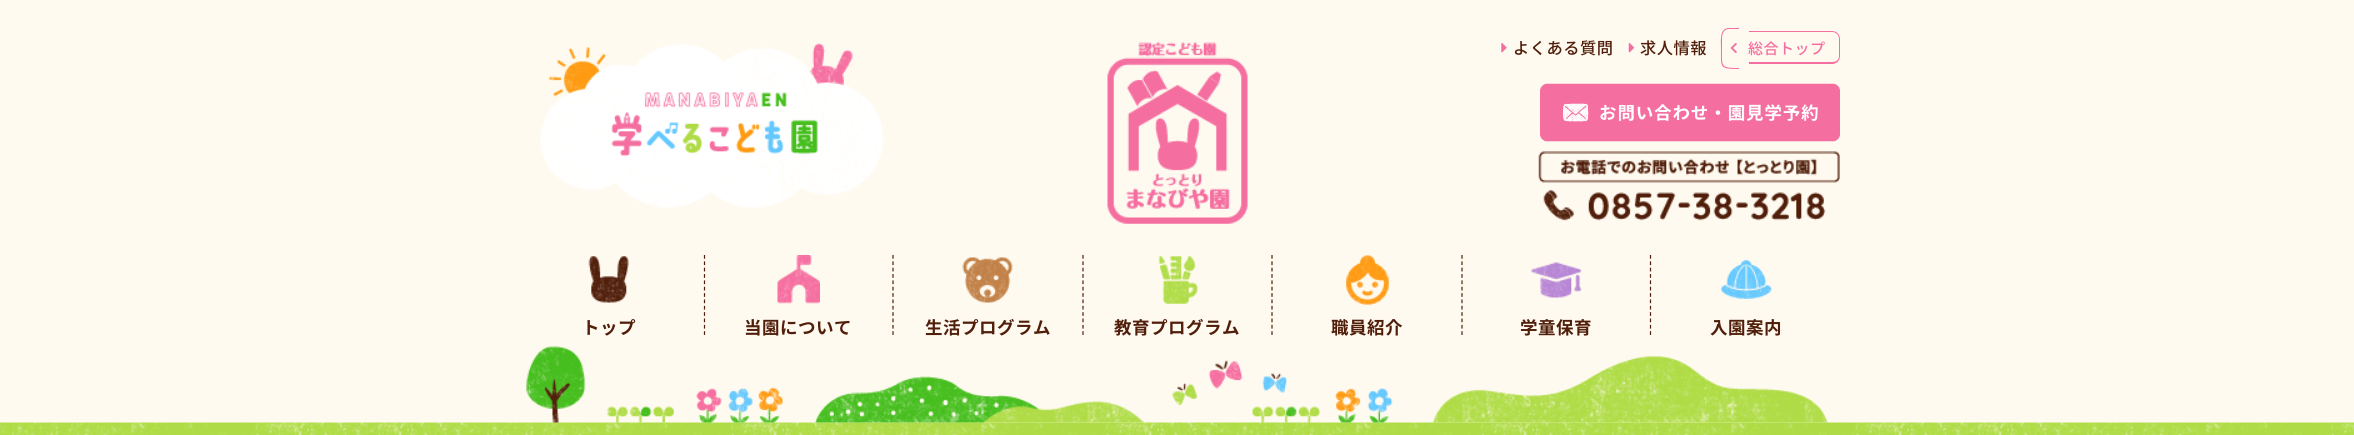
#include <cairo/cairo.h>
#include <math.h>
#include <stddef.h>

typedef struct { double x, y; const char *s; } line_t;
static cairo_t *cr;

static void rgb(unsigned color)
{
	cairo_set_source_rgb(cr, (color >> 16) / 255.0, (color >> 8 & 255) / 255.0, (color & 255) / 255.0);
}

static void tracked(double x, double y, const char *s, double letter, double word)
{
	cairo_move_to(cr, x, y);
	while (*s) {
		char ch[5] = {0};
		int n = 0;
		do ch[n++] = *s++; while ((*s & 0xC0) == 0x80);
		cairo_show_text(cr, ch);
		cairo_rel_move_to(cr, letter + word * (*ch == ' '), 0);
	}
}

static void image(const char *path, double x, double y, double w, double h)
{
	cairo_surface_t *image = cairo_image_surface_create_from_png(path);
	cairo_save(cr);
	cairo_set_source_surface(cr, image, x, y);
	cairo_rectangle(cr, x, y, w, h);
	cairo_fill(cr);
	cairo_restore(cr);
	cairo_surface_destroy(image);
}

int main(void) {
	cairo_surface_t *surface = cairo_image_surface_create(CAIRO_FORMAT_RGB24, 2354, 435);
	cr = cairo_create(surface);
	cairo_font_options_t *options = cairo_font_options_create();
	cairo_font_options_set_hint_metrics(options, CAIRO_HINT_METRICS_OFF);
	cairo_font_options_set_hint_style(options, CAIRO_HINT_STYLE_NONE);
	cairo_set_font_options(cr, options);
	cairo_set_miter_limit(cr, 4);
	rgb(0xfffaf0);
	cairo_paint(cr);
	image("img/1.png", 0, 346, 2354, 89);
	image("img/2.png", 540, 43, 344, 165);
	image("img/3.png", 1107, 42, 141, 182);
	image("img/4.png", 1501, 43, 6, 10);
	image("img/5.png", 1628, 43, 7, 10);
	rgb(0xf56ea0);
	cairo_set_fill_rule(cr, CAIRO_FILL_RULE_EVEN_ODD);
	cairo_new_path(cr);
	cairo_move_to(cr, 1729, 28);
	cairo_line_to(cr, 1739, 28);
	cairo_line_to(cr, 1739, 69);
	cairo_curve_to(cr, 1719, 69, 1721, 68, 1721, 48);
	cairo_curve_to(cr, 1721, 42, 1719, 28, 1729, 28);
	cairo_close_path(cr);
	cairo_move_to(cr, 1729, 29);
	cairo_line_to(cr, 1739, 29);
	cairo_line_to(cr, 1739, 68);
	cairo_curve_to(cr, 1720, 68, 1722, 67, 1722, 48);
	cairo_line_to(cr, 1722, 39);
	cairo_curve_to(cr, 1722, 35, 1723, 29, 1729, 29);
	cairo_close_path(cr);
	cairo_fill(cr);
	cairo_new_path(cr);
	cairo_move_to(cr, 1749, 31);
	cairo_line_to(cr, 1832, 31);
	cairo_curve_to(cr, 1837, 31, 1840, 35, 1840, 39);
	cairo_line_to(cr, 1840, 56);
	cairo_curve_to(cr, 1840, 60, 1837, 64, 1832, 64);
	cairo_line_to(cr, 1749, 64);
	cairo_close_path(cr);
	cairo_move_to(cr, 1749, 32);
	cairo_line_to(cr, 1832, 32);
	cairo_curve_to(cr, 1836, 32, 1839, 35, 1839, 39);
	cairo_line_to(cr, 1839, 56);
	cairo_curve_to(cr, 1839, 60, 1836, 62, 1832, 62);
	cairo_line_to(cr, 1749, 62);
	cairo_close_path(cr);
	cairo_fill(cr);
	image("img/6.png", 1730, 43, 7, 10);
	image("img/7.png", 1540, 83, 300, 59);
	image("img/8.png", 1538, 151, 302, 70);
	image("img/9.png", 588, 256, 41, 47);
	cairo_new_path(cr);
	cairo_move_to(cr, 704.5, 255);
	cairo_line_to(cr, 704.5, 335);
	rgb(0x501e0a);
	cairo_set_line_width(cr, 1.2);
	cairo_set_dash(cr, (double[]){3.75, 2.6}, 2, 0);
	cairo_stroke(cr);
	image("img/10.png", 777, 255, 43, 49);
	cairo_new_path(cr);
	cairo_move_to(cr, 893, 255);
	cairo_line_to(cr, 893, 335);
	cairo_stroke(cr);
	image("img/11.png", 962, 257, 51, 46);
	cairo_new_path(cr);
	cairo_move_to(cr, 1083, 255);
	cairo_line_to(cr, 1083, 335);
	cairo_stroke(cr);
	image("img/12.png", 1158, 256, 40, 48);
	cairo_new_path(cr);
	cairo_move_to(cr, 1272, 255);
	cairo_line_to(cr, 1272, 335);
	cairo_stroke(cr);
	image("img/13.png", 1346, 255, 43, 50);
	cairo_new_path(cr);
	cairo_move_to(cr, 1462, 255);
	cairo_line_to(cr, 1462, 335);
	cairo_stroke(cr);
	image("img/14.png", 1531, 262, 51, 36);
	cairo_new_path(cr);
	cairo_move_to(cr, 1650.5, 255);
	cairo_line_to(cr, 1650.5, 335);
	cairo_stroke(cr);
	image("img/15.png", 1721, 259, 51, 40);
	cairo_select_font_face(cr, "Noto Sans JP Medium", CAIRO_FONT_SLANT_NORMAL, CAIRO_FONT_WEIGHT_NORMAL);
	cairo_set_font_size(cr, 16.25);
	tracked(1513, 54, "よくある質問", 0.5, 0);
	tracked(1640, 54, "求人情報", 0.5, 0);
	cairo_set_font_size(cr, 15);
	rgb(0xf56ea0);
	tracked(1748, 54, "総合トップ", 0.5, 0);
	cairo_select_font_face(cr, "Noto Sans JP", CAIRO_FONT_SLANT_NORMAL, CAIRO_FONT_WEIGHT_BOLD);
	cairo_set_font_size(cr, 17.5);
	rgb(0x501e0a);
	{
		static const line_t items[] = {
			{582, 334, "トップ"},
			{744, 334, "当園について"},
			{925, 334, "生活プログラム"},
			{1114, 334, "教育プログラム"},
			{1331, 334, "職員紹介"},
			{1520, 334, "学童保育"},
			{1710, 334, "入園案内"},
		};
		for (size_t i = 0; i < sizeof items / sizeof *items; i++) {
			tracked(items[i].x, items[i].y, items[i].s, 0.5, 0);
		}
	}
	cairo_surface_write_to_png(surface, "page.png");
	cairo_font_options_destroy(options);
	cairo_destroy(cr);
	cairo_surface_destroy(surface);
	return 0;
}
